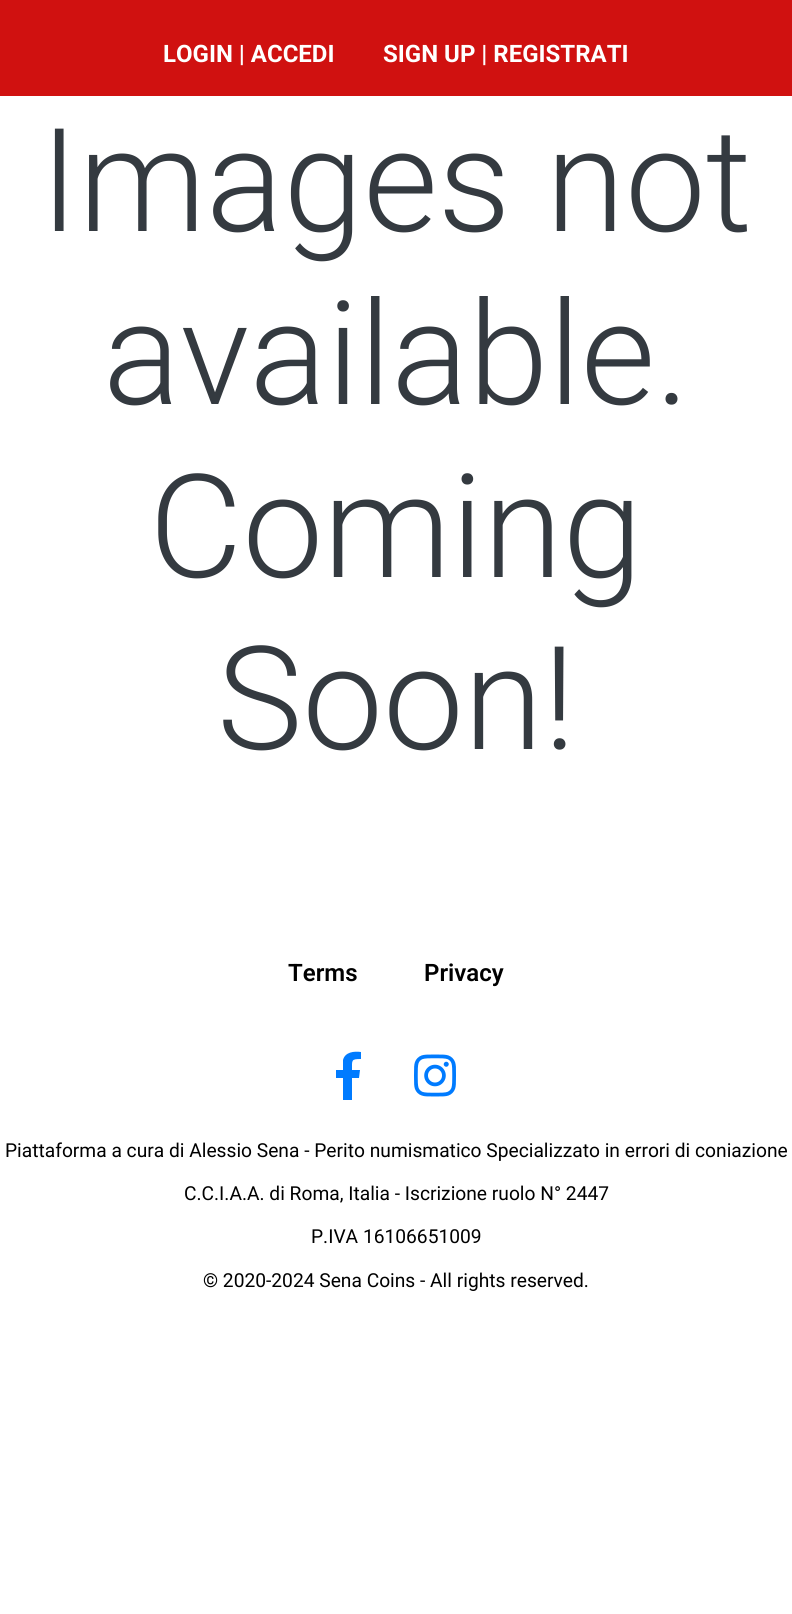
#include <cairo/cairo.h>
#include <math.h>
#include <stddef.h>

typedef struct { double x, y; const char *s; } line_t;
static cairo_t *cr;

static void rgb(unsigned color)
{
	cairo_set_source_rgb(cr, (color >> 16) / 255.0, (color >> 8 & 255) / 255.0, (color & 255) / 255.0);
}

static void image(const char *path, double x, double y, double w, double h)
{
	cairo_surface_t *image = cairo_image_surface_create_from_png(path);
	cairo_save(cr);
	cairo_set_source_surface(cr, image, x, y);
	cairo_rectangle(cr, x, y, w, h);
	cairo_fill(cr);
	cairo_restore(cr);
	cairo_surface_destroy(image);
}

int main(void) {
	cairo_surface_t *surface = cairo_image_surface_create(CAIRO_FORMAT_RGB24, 792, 1614);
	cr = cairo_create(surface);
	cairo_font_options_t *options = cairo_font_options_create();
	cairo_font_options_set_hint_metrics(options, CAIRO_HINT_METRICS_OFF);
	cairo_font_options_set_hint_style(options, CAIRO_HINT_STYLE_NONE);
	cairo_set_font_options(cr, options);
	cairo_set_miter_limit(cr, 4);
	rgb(0xffffff);
	cairo_paint(cr);
	rgb(0xd01110);
	cairo_rectangle(cr, 0, 0, 792, 96);
	cairo_fill(cr);
	rgb(0x007bff);
	cairo_new_path(cr);
	cairo_move_to(cr, 343, 1100);
	cairo_line_to(cr, 343, 1078);
	cairo_line_to(cr, 336, 1078);
	cairo_line_to(cr, 336, 1070);
	cairo_line_to(cr, 343, 1070);
	cairo_line_to(cr, 343, 1060);
	cairo_curve_to(cr, 345, 1052, 354, 1051, 361, 1052);
	cairo_line_to(cr, 361, 1059);
	cairo_curve_to(cr, 351, 1059, 352, 1060, 352, 1070);
	cairo_line_to(cr, 360, 1070);
	cairo_line_to(cr, 359, 1078);
	cairo_line_to(cr, 352, 1078);
	cairo_line_to(cr, 352, 1100);
	cairo_close_path(cr);
	cairo_fill(cr);
	image("img/1.png", 414, 1054, 42, 43);
	cairo_select_font_face(cr, "Roboto", CAIRO_FONT_SLANT_NORMAL, CAIRO_FONT_WEIGHT_BOLD);
	cairo_set_font_size(cr, 24);
	rgb(0xffffff);
	cairo_move_to(cr, 163, 62);
	cairo_show_text(cr, "LOGIN | ACCEDI");
	cairo_move_to(cr, 383, 62);
	cairo_show_text(cr, "SIGN UP | REGISTRATI");
	cairo_select_font_face(cr, "Roboto Light", CAIRO_FONT_SLANT_NORMAL, CAIRO_FONT_WEIGHT_NORMAL);
	cairo_set_font_size(cr, 144);
	rgb(0x343a40);
	{
		static const line_t items[] = {
			{40, 231, "Images not"},
			{103, 404, "available."},
			{149, 577, "Coming"},
			{217, 749, "Soon!"},
		};
		for (size_t i = 0; i < sizeof items / sizeof *items; i++) {
			cairo_move_to(cr, items[i].x, items[i].y);
			cairo_show_text(cr, items[i].s);
		}
	}
	cairo_select_font_face(cr, "Roboto SemiBold", CAIRO_FONT_SLANT_NORMAL, CAIRO_FONT_WEIGHT_NORMAL);
	cairo_set_font_size(cr, 24);
	rgb(0x000000);
	cairo_move_to(cr, 288, 981);
	cairo_show_text(cr, "Terms");
	cairo_move_to(cr, 424, 981);
	cairo_show_text(cr, "Privacy");
	cairo_select_font_face(cr, "Roboto", CAIRO_FONT_SLANT_NORMAL, CAIRO_FONT_WEIGHT_NORMAL);
	cairo_set_font_size(cr, 19.2);
	{
		static const line_t items[] = {
			{5, 1157, "Piattaforma a cura di Alessio Sena - Perito numismatico Specializzato in errori di coniazione"},
			{184, 1200, "C.C.I.A.A. di Roma, Italia - Iscrizione ruolo N° 2447"},
			{311, 1243, "P.IVA 16106651009"},
			{203, 1287, "© 2020-2024 Sena Coins - All rights reserved."},
		};
		for (size_t i = 0; i < sizeof items / sizeof *items; i++) {
			cairo_move_to(cr, items[i].x, items[i].y);
			cairo_show_text(cr, items[i].s);
		}
	}
	cairo_surface_write_to_png(surface, "page.png");
	cairo_font_options_destroy(options);
	cairo_destroy(cr);
	cairo_surface_destroy(surface);
	return 0;
}
